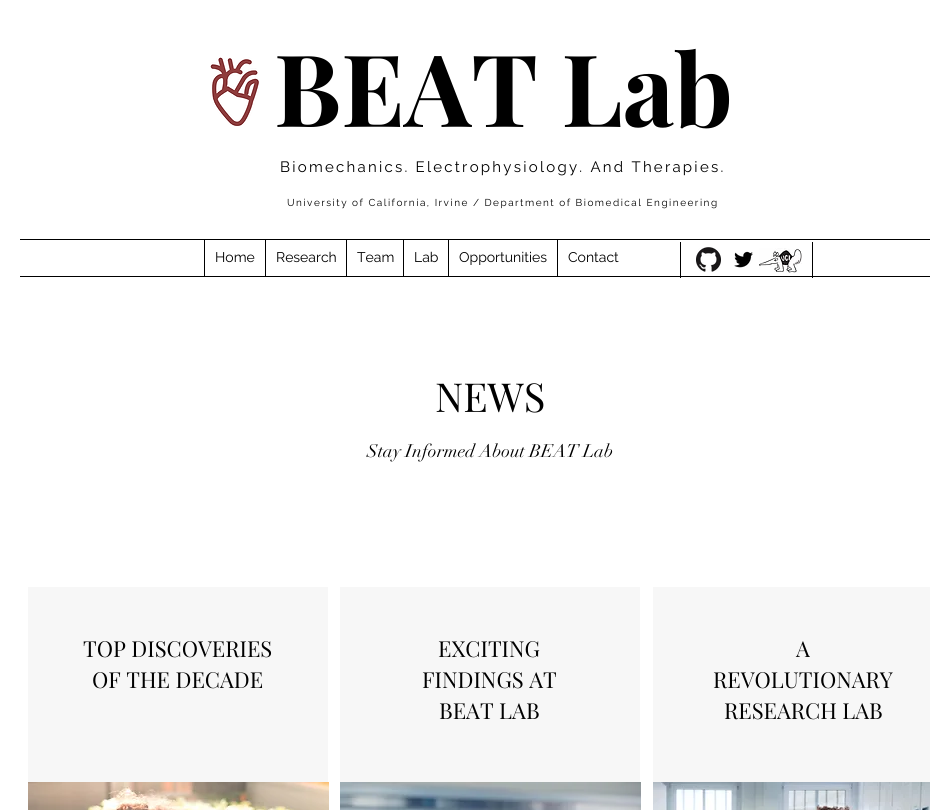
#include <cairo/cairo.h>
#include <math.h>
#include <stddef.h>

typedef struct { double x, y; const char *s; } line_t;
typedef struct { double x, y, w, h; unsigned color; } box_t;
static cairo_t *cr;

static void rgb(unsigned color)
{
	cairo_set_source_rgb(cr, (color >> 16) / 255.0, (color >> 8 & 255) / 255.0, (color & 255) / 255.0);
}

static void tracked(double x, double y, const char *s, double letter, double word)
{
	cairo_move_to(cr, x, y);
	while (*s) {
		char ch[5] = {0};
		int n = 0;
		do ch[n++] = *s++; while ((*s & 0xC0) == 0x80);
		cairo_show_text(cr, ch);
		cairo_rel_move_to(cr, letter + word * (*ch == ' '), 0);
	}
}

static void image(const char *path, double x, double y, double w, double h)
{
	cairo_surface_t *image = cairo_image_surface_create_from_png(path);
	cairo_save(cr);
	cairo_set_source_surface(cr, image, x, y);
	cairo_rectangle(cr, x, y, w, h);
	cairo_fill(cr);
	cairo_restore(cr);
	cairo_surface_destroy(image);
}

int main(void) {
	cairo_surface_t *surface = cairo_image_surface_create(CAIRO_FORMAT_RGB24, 930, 810);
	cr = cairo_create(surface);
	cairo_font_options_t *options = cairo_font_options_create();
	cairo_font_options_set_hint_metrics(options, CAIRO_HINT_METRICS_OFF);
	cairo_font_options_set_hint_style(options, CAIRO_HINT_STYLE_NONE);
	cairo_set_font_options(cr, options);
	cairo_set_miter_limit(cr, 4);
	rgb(0xffffff);
	cairo_paint(cr);
	image("img/1.png", 210, 57, 49, 69);
	{
		static const box_t items[] = {
			{204, 239, 1, 37, 0x000000},
			{265, 239, 1, 37, 0x000000},
			{346, 239, 1, 37, 0x000000},
			{403, 239, 1, 37, 0x000000},
			{448, 239, 1, 37, 0x000000},
			{557, 239, 1, 37, 0x000000},
			{20, 239, 910, 1, 0x000000},
			{680, 242, 1, 36, 0x000000},
		};
		for (size_t i = 0; i < sizeof items / sizeof *items; i++) {
			rgb(items[i].color);
			cairo_rectangle(cr, items[i].x, items[i].y, items[i].w, items[i].h);
			cairo_fill(cr);
		}
	}
	image("img/2.png", 696, 247, 25, 25);
	image("img/3.png", 734, 251, 19, 17);
	image("img/4.png", 759, 248, 43, 25);
	{
		static const box_t items[] = {
			{812, 242, 1, 36, 0x000000},
			{20, 276, 910, 1, 0x000000},
			{28, 587, 300, 195, 0xf7f7f7},
		};
		for (size_t i = 0; i < sizeof items / sizeof *items; i++) {
			rgb(items[i].color);
			cairo_rectangle(cr, items[i].x, items[i].y, items[i].w, items[i].h);
			cairo_fill(cr);
		}
	}
	image("img/5.png", 28, 782, 301, 28);
	cairo_rectangle(cr, 340, 587, 300, 195);
	cairo_fill(cr);
	image("img/6.png", 340, 782, 301, 28);
	cairo_rectangle(cr, 653, 587, 277, 195);
	cairo_fill(cr);
	image("img/7.png", 653, 782, 277, 28);
	cairo_select_font_face(cr, "Playfair Display", CAIRO_FONT_SLANT_NORMAL, CAIRO_FONT_WEIGHT_BOLD);
	cairo_set_font_size(cr, 100);
	rgb(0x000000);
	cairo_move_to(cr, 274, 127);
	cairo_show_text(cr, "BEAT Lab");
	cairo_select_font_face(cr, "Raleway", CAIRO_FONT_SLANT_NORMAL, CAIRO_FONT_WEIGHT_NORMAL);
	cairo_set_font_size(cr, 15);
	tracked(280, 172, "Biomechanics. Electrophysiology. And Therapies.", 2.25, 0);
	cairo_set_font_size(cr, 10);
	tracked(287, 206, "University of California, Irvine / Department of Biomedical Engineering", 1.5, 0);
	cairo_set_font_size(cr, 14);
	{
		static const line_t items[] = {
			{215, 262, "Home"},
			{276, 262, "Research"},
			{357, 262, "Team"},
			{414, 262, "Lab"},
			{459, 262, "Opportunities"},
			{568, 262, "Contact"},
		};
		for (size_t i = 0; i < sizeof items / sizeof *items; i++) {
			cairo_move_to(cr, items[i].x, items[i].y);
			cairo_show_text(cr, items[i].s);
		}
	}
	cairo_select_font_face(cr, "Playfair Display", CAIRO_FONT_SLANT_NORMAL, CAIRO_FONT_WEIGHT_NORMAL);
	cairo_set_font_size(cr, 40);
	cairo_move_to(cr, 435, 412);
	cairo_show_text(cr, "NEWS");
	cairo_select_font_face(cr, "didot", CAIRO_FONT_SLANT_NORMAL, CAIRO_FONT_WEIGHT_NORMAL);
	cairo_set_font_size(cr, 18);
	cairo_move_to(cr, 367, 457);
	cairo_show_text(cr, "Stay Informed About BEAT Lab");
	cairo_select_font_face(cr, "Playfair Display", CAIRO_FONT_SLANT_NORMAL, CAIRO_FONT_WEIGHT_NORMAL);
	cairo_set_font_size(cr, 22);
	{
		static const line_t items[] = {
			{83, 657, "TOP DISCOVERIES"},
			{92, 688, "OF THE DECADE"},
			{438, 657, "EXCITING"},
			{422, 688, "FINDINGS AT"},
			{439, 719, "BEAT LAB"},
			{796, 657, "A"},
			{713, 688, "REVOLUTIONARY"},
			{724, 719, "RESEARCH LAB"},
		};
		for (size_t i = 0; i < sizeof items / sizeof *items; i++) {
			cairo_move_to(cr, items[i].x, items[i].y);
			cairo_show_text(cr, items[i].s);
		}
	}
	cairo_surface_write_to_png(surface, "page.png");
	cairo_font_options_destroy(options);
	cairo_destroy(cr);
	cairo_surface_destroy(surface);
	return 0;
}
